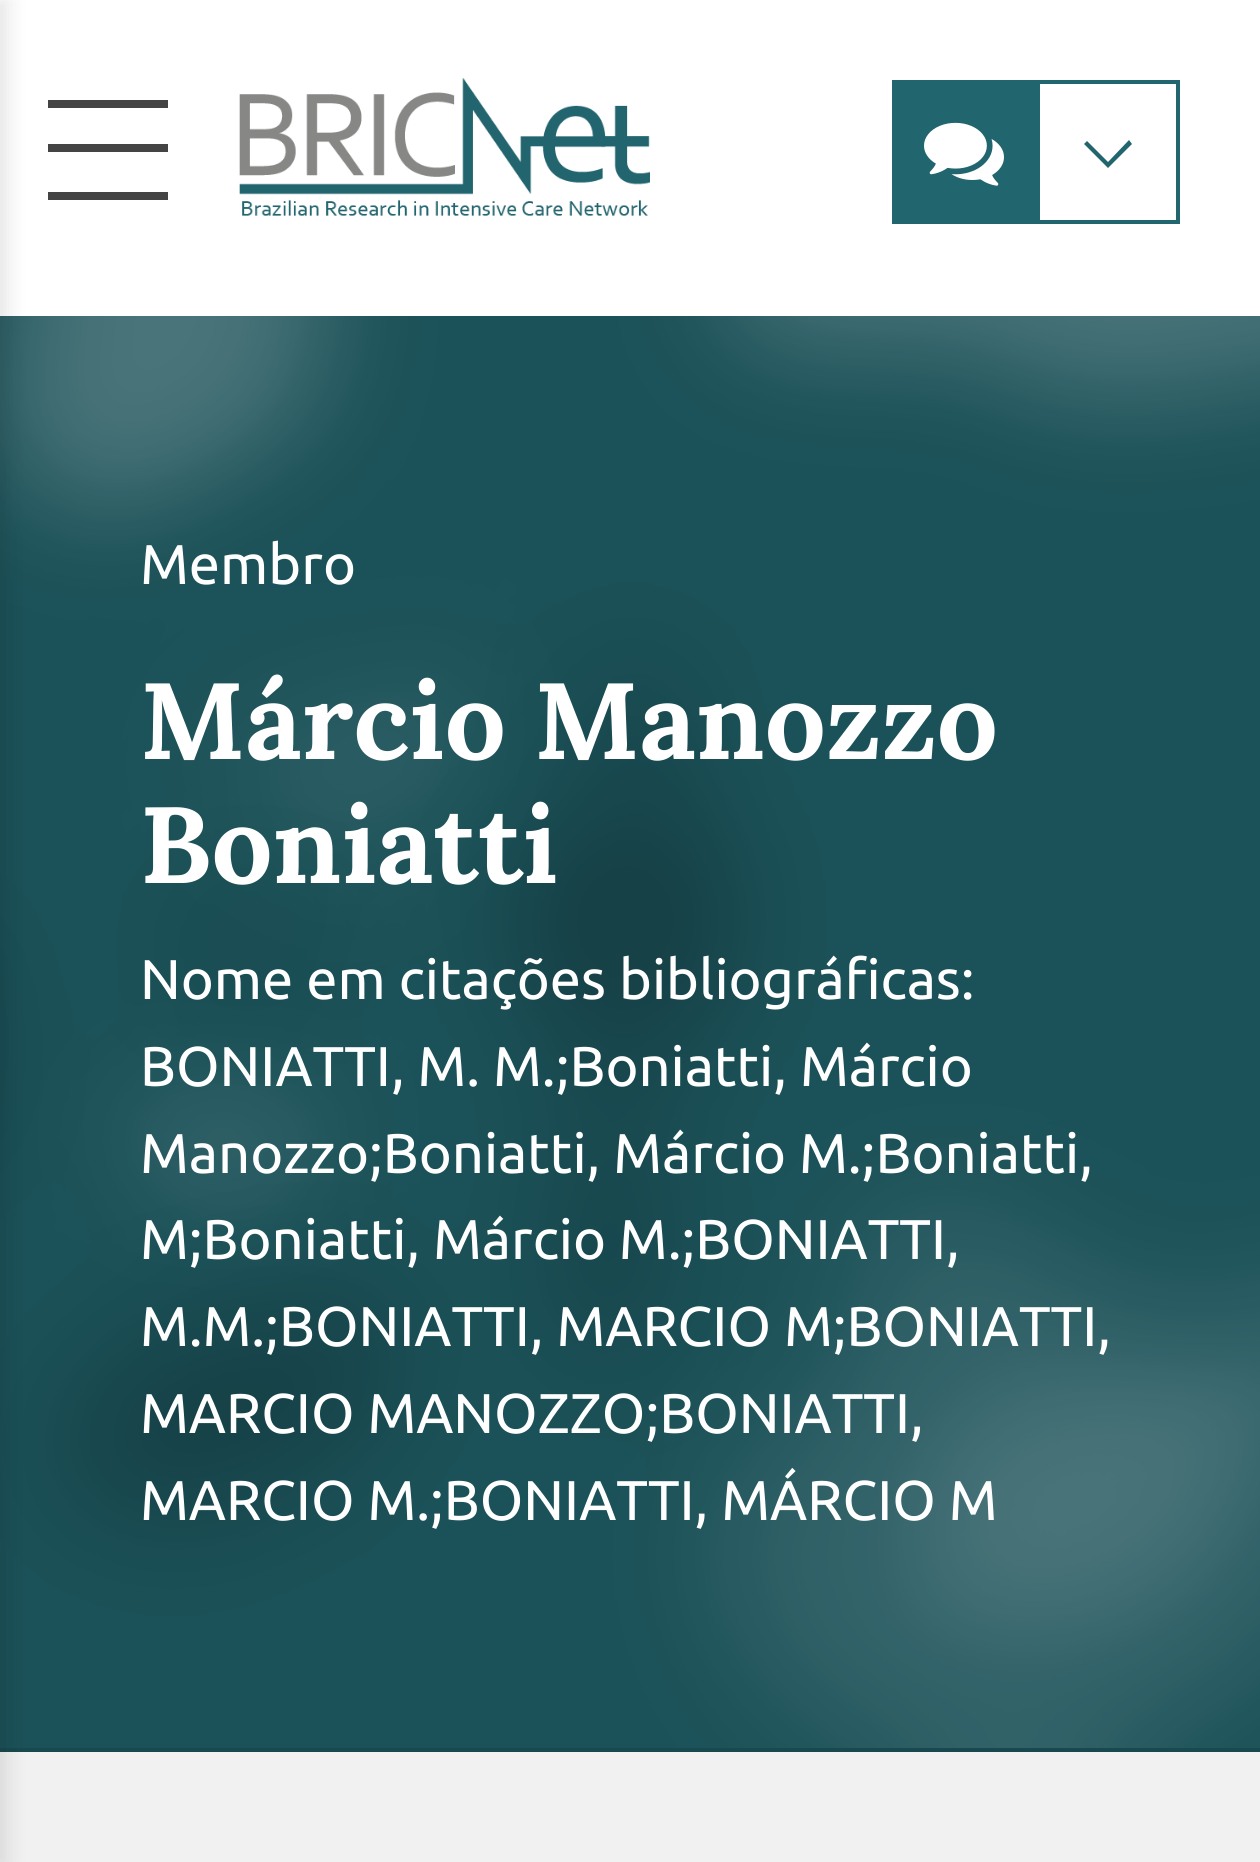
#include <cairo/cairo.h>
#include <math.h>
#include <stddef.h>

typedef struct { double x, y; const char *s; } line_t;
typedef struct { double x, y, w, h; unsigned color; } box_t;
static cairo_t *cr;

static void rgb(unsigned color)
{
	cairo_set_source_rgb(cr, (color >> 16) / 255.0, (color >> 8 & 255) / 255.0, (color & 255) / 255.0);
}

static void rrect(double x, double y, double w, double h, double r)
{
	cairo_new_sub_path(cr);
	cairo_arc(cr, x + w - r, y + h - r, r, 0, M_PI / 2);
	cairo_arc(cr, x + r, y + h - r, r, M_PI / 2, M_PI);
	cairo_arc(cr, x + r, y + r, r, M_PI, 1.5 * M_PI);
	cairo_arc(cr, x + w - r, y + r, r, 1.5 * M_PI, 2 * M_PI);
	cairo_close_path(cr);
}

static void soft_shadow(double x, double y, double w, double h, double r, double blur, double alpha)
{
	cairo_push_group_with_content(cr, CAIRO_CONTENT_ALPHA);
	cairo_set_operator(cr, CAIRO_OPERATOR_SOURCE);
	for (int i = 15; i >= -15 && fmin(w, h) + blur * i / 3 > 0; i -= 2) {
		double e = blur * i / 6;
		cairo_set_source_rgba(cr, 0, 0, 0, alpha * erfc((i - 1) / 8.5) / 2);
		rrect(x - e, y - e, w + 2 * e, h + 2 * e, fmax(0, fmin(r + e + blur * .6, fmin(w, h) / 2 + e)));
		cairo_fill(cr);
	}
	cairo_pattern_t *soft = cairo_pop_group(cr);
	cairo_mask(cr, soft);
	cairo_pattern_destroy(soft);
}

static void image(const char *path, double x, double y, double w, double h)
{
	cairo_surface_t *image = cairo_image_surface_create_from_png(path);
	cairo_save(cr);
	cairo_set_source_surface(cr, image, x, y);
	cairo_rectangle(cr, x, y, w, h);
	cairo_fill(cr);
	cairo_restore(cr);
	cairo_surface_destroy(image);
}

int main(void) {
	cairo_surface_t *surface = cairo_image_surface_create(CAIRO_FORMAT_RGB24, 1260, 1862);
	cr = cairo_create(surface);
	cairo_font_options_t *options = cairo_font_options_create();
	cairo_font_options_set_hint_metrics(options, CAIRO_HINT_METRICS_OFF);
	cairo_font_options_set_hint_style(options, CAIRO_HINT_STYLE_NONE);
	cairo_set_font_options(cr, options);
	cairo_set_miter_limit(cr, 4);
	rgb(0xffffff);
	cairo_paint(cr);
	rgb(0x1b5158);
	cairo_rectangle(cr, 0, 316, 1260, 1432);
	cairo_fill(cr);
	image("img/3.png", 0, 316, 1260, 1432);
	rgb(0x18494f);
	cairo_rectangle(cr, 0, 1748, 1260, 4);
	cairo_fill(cr);
	rgb(0xf1f1f1);
	cairo_rectangle(cr, 0, 1752, 1260, 110);
	cairo_fill(cr);
	rgb(0x000000);
	soft_shadow(-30, 0, 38, 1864, 0, 10, 0.1);
	{
		static const box_t items[] = {
			{48, 100, 120, 8, 0x444444},
			{48, 144, 120, 8, 0x444444},
			{48, 192, 120, 8, 0x444444},
		};
		for (size_t i = 0; i < sizeof items / sizeof *items; i++) {
			rgb(items[i].color);
			cairo_rectangle(cr, items[i].x, items[i].y, items[i].w, items[i].h);
			cairo_fill(cr);
		}
	}
	image("img/1.png", 239, 78, 411, 138);
	rgb(0x21656e);
	cairo_rectangle(cr, 892, 80, 144, 144);
	cairo_fill(cr);
	image("img/2.png", 924, 122, 80, 64);
	cairo_rectangle(cr, 1038, 82, 140, 140);
	cairo_set_line_width(cr, 4);
	cairo_stroke(cr);
	cairo_new_path(cr);
	cairo_move_to(cr, 1105, 165);
	cairo_line_to(cr, 1108, 168);
	cairo_line_to(cr, 1132, 144);
	cairo_line_to(cr, 1129, 140);
	cairo_line_to(cr, 1108, 162);
	cairo_line_to(cr, 1087, 141);
	cairo_line_to(cr, 1084, 144);
	cairo_close_path(cr);
	cairo_fill(cr);
	cairo_select_font_face(cr, "Ubuntu", CAIRO_FONT_SLANT_NORMAL, CAIRO_FONT_WEIGHT_NORMAL);
	cairo_set_font_size(cr, 56);
	rgb(0xffffff);
	cairo_move_to(cr, 140, 584);
	cairo_show_text(cr, "Membro");
	cairo_select_font_face(cr, "Lora", CAIRO_FONT_SLANT_NORMAL, CAIRO_FONT_WEIGHT_BOLD);
	cairo_set_font_size(cr, 108);
	cairo_move_to(cr, 140, 759);
	cairo_show_text(cr, "Márcio Manozzo");
	cairo_move_to(cr, 140, 883);
	cairo_show_text(cr, "Boniatti");
	cairo_select_font_face(cr, "Ubuntu", CAIRO_FONT_SLANT_NORMAL, CAIRO_FONT_WEIGHT_NORMAL);
	cairo_set_font_size(cr, 56);
	{
		static const line_t items[] = {
			{140, 999, "Nome em citações bibliográficas:"},
			{140, 1086, "BONIATTI, M. M.;Boniatti, Márcio"},
			{140, 1173, "Manozzo;Boniatti, Márcio M.;Boniatti,"},
			{140, 1259, "M;Boniatti, Márcio M.;BONIATTI,"},
			{140, 1346, "M.M.;BONIATTI, MARCIO M;BONIATTI,"},
			{140, 1433, "MARCIO MANOZZO;BONIATTI,"},
			{140, 1520, "MARCIO M.;BONIATTI, MÁRCIO M"},
		};
		for (size_t i = 0; i < sizeof items / sizeof *items; i++) {
			cairo_move_to(cr, items[i].x, items[i].y);
			cairo_show_text(cr, items[i].s);
		}
	}
	cairo_surface_write_to_png(surface, "page.png");
	cairo_font_options_destroy(options);
	cairo_destroy(cr);
	cairo_surface_destroy(surface);
	return 0;
}
